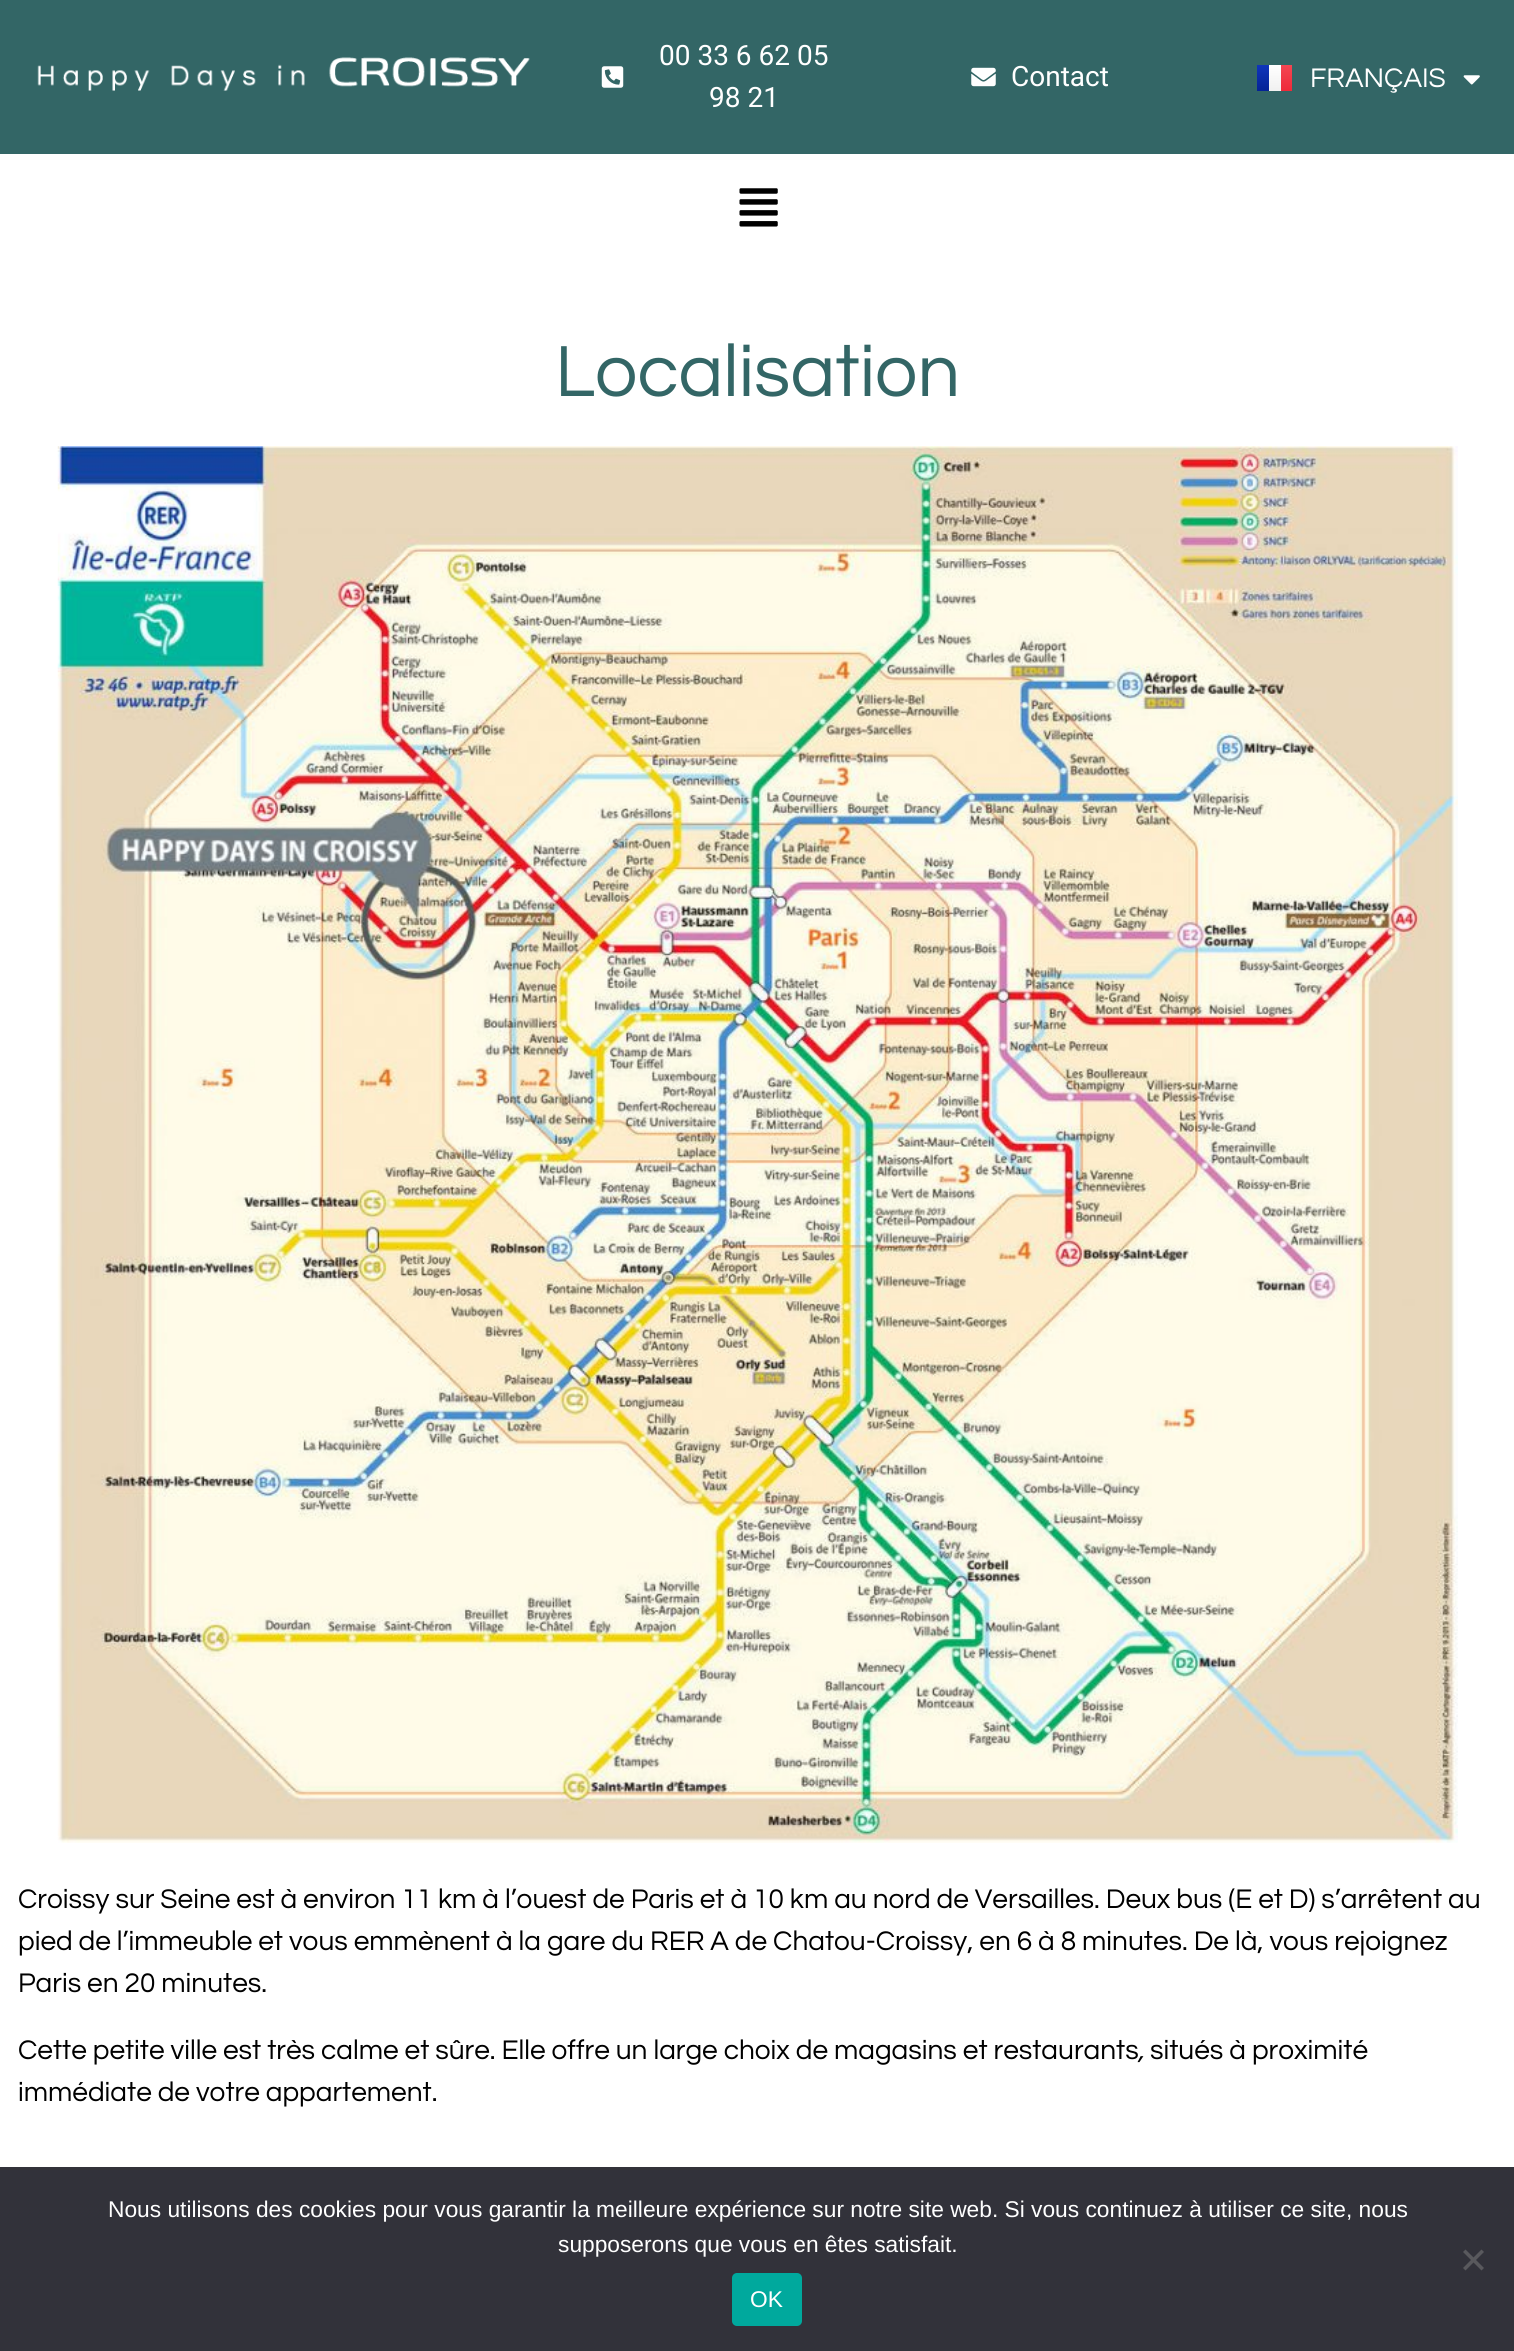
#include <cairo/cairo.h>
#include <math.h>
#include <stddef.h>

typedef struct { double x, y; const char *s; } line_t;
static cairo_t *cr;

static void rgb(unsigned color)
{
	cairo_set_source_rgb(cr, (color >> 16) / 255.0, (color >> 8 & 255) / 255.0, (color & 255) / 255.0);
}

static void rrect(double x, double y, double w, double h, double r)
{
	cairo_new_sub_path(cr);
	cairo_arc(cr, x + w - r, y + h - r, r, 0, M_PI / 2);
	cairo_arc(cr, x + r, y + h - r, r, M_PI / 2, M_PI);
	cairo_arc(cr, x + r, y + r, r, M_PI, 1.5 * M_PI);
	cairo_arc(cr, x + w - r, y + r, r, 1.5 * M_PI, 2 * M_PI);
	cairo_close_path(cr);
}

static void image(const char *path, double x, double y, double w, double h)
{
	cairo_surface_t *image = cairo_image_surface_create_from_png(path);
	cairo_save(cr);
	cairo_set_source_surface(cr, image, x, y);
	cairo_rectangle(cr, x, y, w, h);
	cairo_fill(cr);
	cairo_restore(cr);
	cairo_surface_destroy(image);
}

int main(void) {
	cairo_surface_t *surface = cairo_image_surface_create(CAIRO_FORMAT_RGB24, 1514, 2351);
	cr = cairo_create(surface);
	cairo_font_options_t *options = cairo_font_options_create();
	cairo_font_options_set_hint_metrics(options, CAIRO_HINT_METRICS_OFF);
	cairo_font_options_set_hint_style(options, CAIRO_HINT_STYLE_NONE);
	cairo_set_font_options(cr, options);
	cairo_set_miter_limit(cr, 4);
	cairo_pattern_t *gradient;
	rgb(0xffffff);
	cairo_paint(cr);
	rgb(0x336666);
	cairo_rectangle(cr, 0, 0, 1514, 154);
	cairo_fill(cr);
	image("img/1.png", 37, 57, 493, 34);
	image("img/2.png", 601, 66, 23, 22);
	image("img/3.png", 971, 67, 25, 20);
	gradient = cairo_pattern_create_linear(1263, 65, 1263, 91);
	cairo_pattern_add_color_stop_rgba(gradient, 0, 0.063, 0.208, 0.733, 1);
	cairo_pattern_add_color_stop_rgba(gradient, 1, 0.016, 0.137, 0.588, 1);
	cairo_set_source(cr, gradient);
	cairo_pattern_destroy(gradient);
	cairo_rectangle(cr, 1257, 65, 12, 26);
	cairo_fill(cr);
	gradient = cairo_pattern_create_linear(1275, 65, 1275, 91);
	cairo_pattern_add_color_stop_rgba(gradient, 0, 1, 1, 1, 1);
	cairo_pattern_add_color_stop_rgba(gradient, 1, 0.941, 0.941, 0.941, 1);
	cairo_set_source(cr, gradient);
	cairo_pattern_destroy(gradient);
	cairo_rectangle(cr, 1269, 65, 12, 26);
	cairo_fill(cr);
	gradient = cairo_pattern_create_linear(1284, 65, 1284, 91);
	cairo_pattern_add_color_stop_rgba(gradient, 0, 0.957, 0.275, 0.325, 1);
	cairo_pattern_add_color_stop_rgba(gradient, 1, 0.933, 0.165, 0.224, 1);
	cairo_set_source(cr, gradient);
	cairo_pattern_destroy(gradient);
	cairo_rectangle(cr, 1281, 65, 11, 26);
	cairo_fill(cr);
	image("img/4.png", 1463, 75, 17, 10);
	image("img/5.png", 739, 188, 39, 39);
	image("img/6.png", 57, 446, 1401, 1397);
	rgb(0x32323a);
	cairo_rectangle(cr, 0, 2167, 1514, 184);
	cairo_fill(cr);
	rgb(0x59595d);
	cairo_new_path(cr);
	cairo_move_to(cr, 1481.5, 2249.5);
	cairo_line_to(cr, 1484, 2252);
	cairo_line_to(cr, 1465.5, 2270.5);
	cairo_line_to(cr, 1463, 2268);
	cairo_close_path(cr);
	cairo_fill(cr);
	cairo_new_path(cr);
	cairo_move_to(cr, 1463, 2252);
	cairo_line_to(cr, 1465.5, 2249.5);
	cairo_line_to(cr, 1484, 2268);
	cairo_line_to(cr, 1481.5, 2270.5);
	cairo_close_path(cr);
	cairo_fill(cr);
	rgb(0x00a99d);
	rrect(732, 2273, 70, 53, 5);
	cairo_fill(cr);
	cairo_select_font_face(cr, "Roboto", CAIRO_FONT_SLANT_NORMAL, CAIRO_FONT_WEIGHT_NORMAL);
	cairo_set_font_size(cr, 28);
	rgb(0xffffff);
	{
		static const line_t items[] = {
			{659, 65, "00 33 6 62 05"},
			{709, 107, "98 21"},
			{1011, 86, "Contact"},
		};
		for (size_t i = 0; i < sizeof items / sizeof *items; i++) {
			cairo_move_to(cr, items[i].x, items[i].y);
			cairo_show_text(cr, items[i].s);
		}
	}
	cairo_select_font_face(cr, "Questrial", CAIRO_FONT_SLANT_NORMAL, CAIRO_FONT_WEIGHT_NORMAL);
	cairo_move_to(cr, 1310, 87);
	cairo_show_text(cr, "FRANÇAIS");
	cairo_set_font_size(cr, 75.25);
	rgb(0x336666);
	cairo_move_to(cr, 555, 396);
	cairo_show_text(cr, "Localisation");
	cairo_set_font_size(cr, 28);
	rgb(0x000000);
	{
		static const line_t items[] = {
			{18, 1908, "Croissy sur Seine est à environ 11 km à l’ouest de Paris et à 10 km au nord de Versailles. Deux bus (E et D) s’arrêtent au"},
			{18, 1950, "pied de l’immeuble et vous emmènent à la gare du RER A de Chatou-Croissy, en 6 à 8 minutes. De là, vous rejoignez"},
			{18, 1992, "Paris en 20 minutes."},
			{18, 2059, "Cette petite ville est très calme et sûre. Elle offre un large choix de magasins et restaurants"},
		};
		for (size_t i = 0; i < sizeof items / sizeof *items; i++) {
			cairo_move_to(cr, items[i].x, items[i].y);
			cairo_show_text(cr, items[i].s);
		}
	}
	cairo_select_font_face(cr, "Questrial", CAIRO_FONT_SLANT_ITALIC, CAIRO_FONT_WEIGHT_NORMAL);
	cairo_move_to(cr, 1138, 2059);
	cairo_show_text(cr, ",");
	cairo_select_font_face(cr, "Questrial", CAIRO_FONT_SLANT_NORMAL, CAIRO_FONT_WEIGHT_NORMAL);
	cairo_move_to(cr, 1150, 2059);
	cairo_show_text(cr, "situés à proximité");
	cairo_move_to(cr, 18, 2101);
	cairo_show_text(cr, "immédiate de votre appartement.");
	cairo_select_font_face(cr, "Liberation Sans", CAIRO_FONT_SLANT_NORMAL, CAIRO_FONT_WEIGHT_NORMAL);
	cairo_set_font_size(cr, 22.75);
	rgb(0xffffff);
	{
		static const line_t items[] = {
			{108, 2217, "Nous utilisons des cookies pour vous garantir la meilleure expérience sur notre site web. Si vous continuez à utiliser ce site, nous"},
			{558, 2252, "supposerons que vous en êtes satisfait."},
			{750, 2307, "OK"},
		};
		for (size_t i = 0; i < sizeof items / sizeof *items; i++) {
			cairo_move_to(cr, items[i].x, items[i].y);
			cairo_show_text(cr, items[i].s);
		}
	}
	cairo_surface_write_to_png(surface, "page.png");
	cairo_font_options_destroy(options);
	cairo_destroy(cr);
	cairo_surface_destroy(surface);
	return 0;
}
